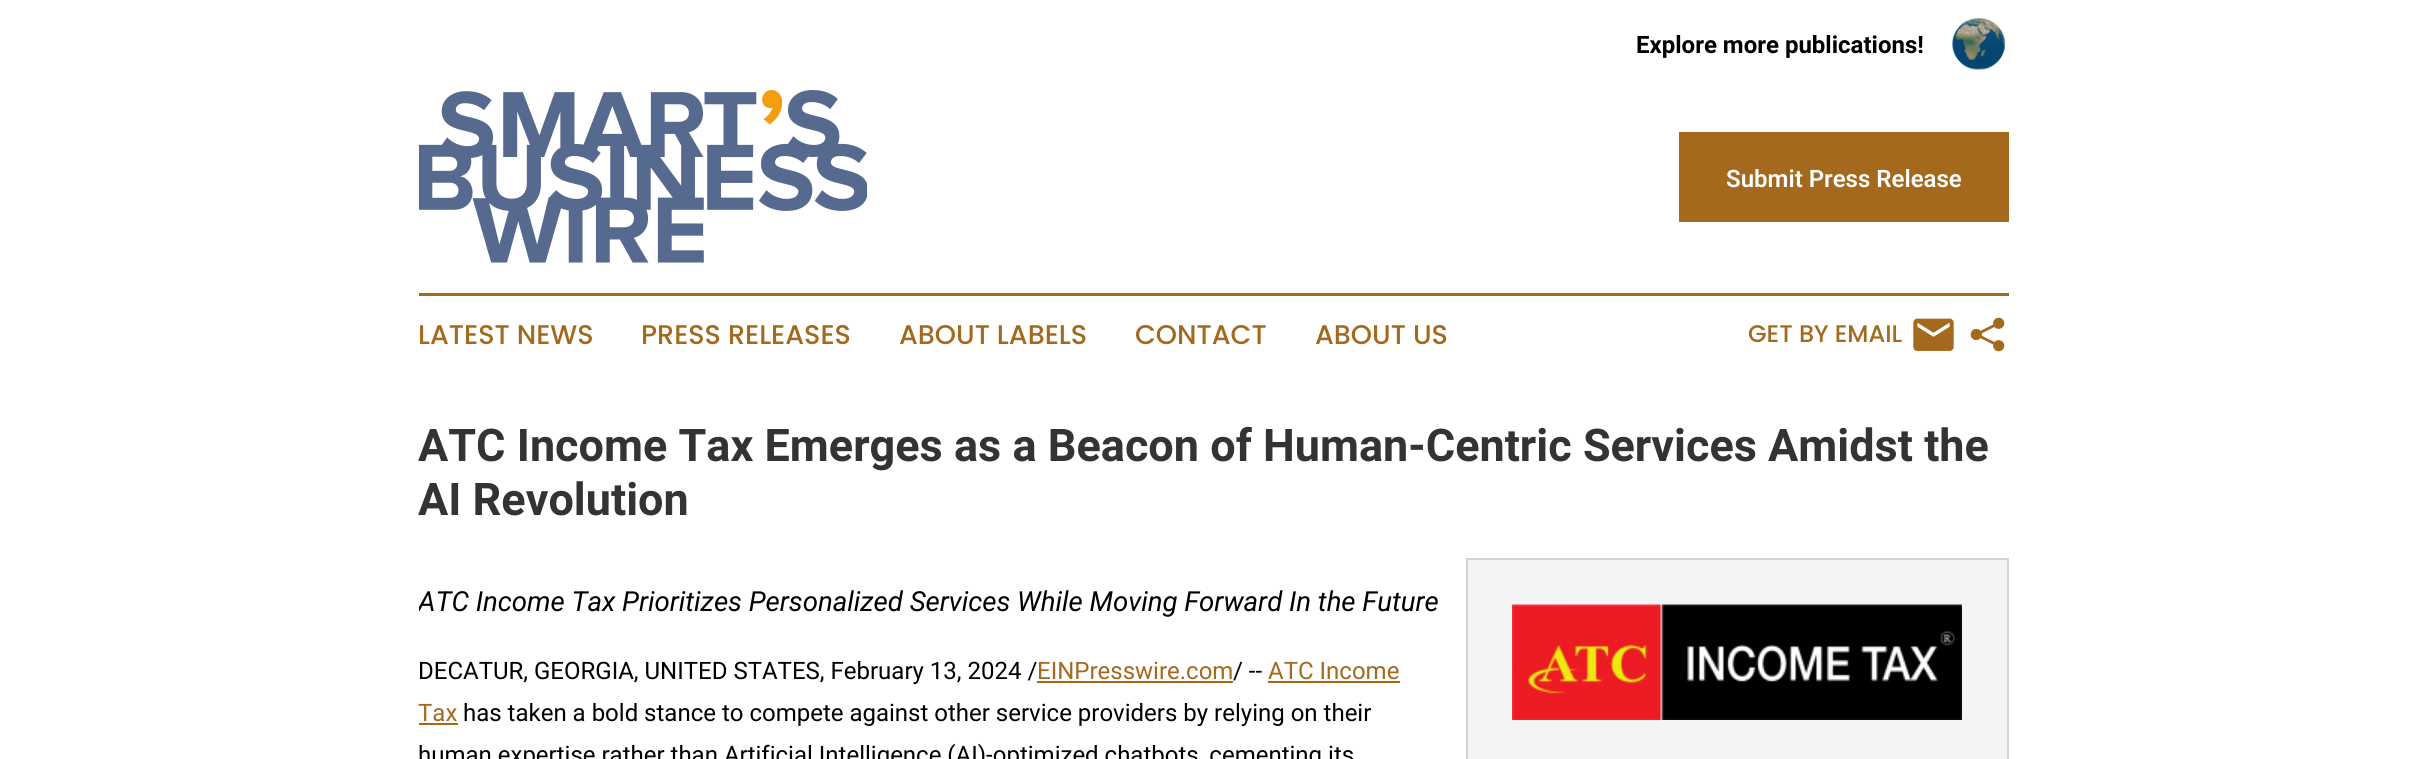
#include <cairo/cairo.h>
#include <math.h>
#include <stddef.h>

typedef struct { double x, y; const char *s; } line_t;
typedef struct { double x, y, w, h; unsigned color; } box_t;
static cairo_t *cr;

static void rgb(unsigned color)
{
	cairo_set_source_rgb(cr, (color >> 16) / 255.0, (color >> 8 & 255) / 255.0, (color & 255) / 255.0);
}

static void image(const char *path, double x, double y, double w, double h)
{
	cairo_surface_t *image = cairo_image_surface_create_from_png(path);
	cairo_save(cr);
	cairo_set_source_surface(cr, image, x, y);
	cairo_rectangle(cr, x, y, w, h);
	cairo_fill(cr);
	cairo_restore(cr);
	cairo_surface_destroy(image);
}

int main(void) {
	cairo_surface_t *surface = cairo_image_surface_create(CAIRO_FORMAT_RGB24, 2425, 759);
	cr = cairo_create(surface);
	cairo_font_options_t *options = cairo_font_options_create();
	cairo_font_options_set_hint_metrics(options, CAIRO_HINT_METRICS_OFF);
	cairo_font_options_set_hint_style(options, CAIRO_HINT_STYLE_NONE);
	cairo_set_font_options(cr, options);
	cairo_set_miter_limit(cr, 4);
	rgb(0xffffff);
	cairo_paint(cr);
	image("img/1.png", 1952, 17, 54, 54);
	image("img/2.png", 419, 90, 448, 173);
	rgb(0xa4691c);
	cairo_rectangle(cr, 1679, 132, 330, 90);
	cairo_fill(cr);
	cairo_rectangle(cr, 419, 293, 1590, 3);
	cairo_fill(cr);
	image("img/3.png", 1913, 318, 41, 33);
	image("img/4.png", 1970, 317, 35, 35);
	rgb(0xf3f4f6);
	cairo_rectangle(cr, 1467, 559, 541, 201);
	cairo_fill_preserve(cr);
	rgb(0xd1d5db);
	cairo_stroke(cr);
	image("img/5.png", 1512, 604, 450, 116);
	{
		static const box_t items[] = {
			{1037, 681, 196, 2, 0xa4691c},
			{1268, 681, 132, 2, 0xa4691c},
			{419, 723, 39, 2, 0xa4691c},
		};
		for (size_t i = 0; i < sizeof items / sizeof *items; i++) {
			rgb(items[i].color);
			cairo_rectangle(cr, items[i].x, items[i].y, items[i].w, items[i].h);
			cairo_fill(cr);
		}
	}
	cairo_select_font_face(cr, "Roboto", CAIRO_FONT_SLANT_NORMAL, CAIRO_FONT_WEIGHT_BOLD);
	cairo_set_font_size(cr, 24);
	rgb(0x000000);
	cairo_move_to(cr, 1636, 53);
	cairo_show_text(cr, "Explore more publications!");
	cairo_select_font_face(cr, "Roboto SemiBold", CAIRO_FONT_SLANT_NORMAL, CAIRO_FONT_WEIGHT_NORMAL);
	rgb(0xffffff);
	cairo_move_to(cr, 1726, 187);
	cairo_show_text(cr, "Submit Press Release");
	cairo_select_font_face(cr, "Poppins Medium", CAIRO_FONT_SLANT_NORMAL, CAIRO_FONT_WEIGHT_NORMAL);
	cairo_set_font_size(cr, 27);
	rgb(0xa4691c);
	{
		static const line_t items[] = {
			{418, 344, "LATEST NEWS"},
			{641, 344, "PRESS RELEASES"},
			{899, 344, "ABOUT LABELS"},
			{1135, 344, "CONTACT"},
			{1315, 344, "ABOUT US"},
		};
		for (size_t i = 0; i < sizeof items / sizeof *items; i++) {
			cairo_move_to(cr, items[i].x, items[i].y);
			cairo_show_text(cr, items[i].s);
		}
	}
	cairo_set_font_size(cr, 24);
	cairo_move_to(cr, 1748, 342);
	cairo_show_text(cr, "GET BY EMAIL");
	cairo_select_font_face(cr, "Roboto", CAIRO_FONT_SLANT_NORMAL, CAIRO_FONT_WEIGHT_BOLD);
	cairo_set_font_size(cr, 45);
	rgb(0x333333);
	cairo_move_to(cr, 418, 461);
	cairo_show_text(cr, "ATC Income Tax Emerges as a Beacon of Human-Centric Services Amidst the");
	cairo_move_to(cr, 418, 515);
	cairo_show_text(cr, "AI Revolution");
	cairo_save(cr);
	cairo_rectangle(cr, 419, 558, 1590, 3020);
	cairo_clip(cr);
	cairo_select_font_face(cr, "Roboto", CAIRO_FONT_SLANT_ITALIC, CAIRO_FONT_WEIGHT_NORMAL);
	cairo_set_font_size(cr, 27.6);
	rgb(0x000000);
	cairo_move_to(cr, 418, 611);
	cairo_show_text(cr, "ATC Income Tax Prioritizes Personalized Services While Moving Forward In the Future");
	cairo_restore(cr);
	cairo_select_font_face(cr, "Roboto", CAIRO_FONT_SLANT_NORMAL, CAIRO_FONT_WEIGHT_NORMAL);
	cairo_set_font_size(cr, 24);
	rgb(0x000000);
	cairo_move_to(cr, 418, 679);
	cairo_show_text(cr, "DECATUR, GEORGIA, UNITED STATES, February 13, 2024 /");
	rgb(0xa4691c);
	cairo_move_to(cr, 1037, 679);
	cairo_show_text(cr, "EINPresswire.com");
	rgb(0x000000);
	cairo_move_to(cr, 1233, 679);
	cairo_show_text(cr, "/ --");
	rgb(0xa4691c);
	cairo_move_to(cr, 1268, 679);
	cairo_show_text(cr, "ATC Income");
	cairo_move_to(cr, 418, 721);
	cairo_show_text(cr, "Tax");
	rgb(0x000000);
	cairo_move_to(cr, 463, 721);
	cairo_show_text(cr, "has taken a bold stance to compete against other service providers by relying on their");
	cairo_move_to(cr, 418, 763);
	cairo_show_text(cr, "human expertise rather than Artificial Intelligence (AI)-optimized chatbots, cementing its");
	cairo_surface_write_to_png(surface, "page.png");
	cairo_font_options_destroy(options);
	cairo_destroy(cr);
	cairo_surface_destroy(surface);
	return 0;
}
